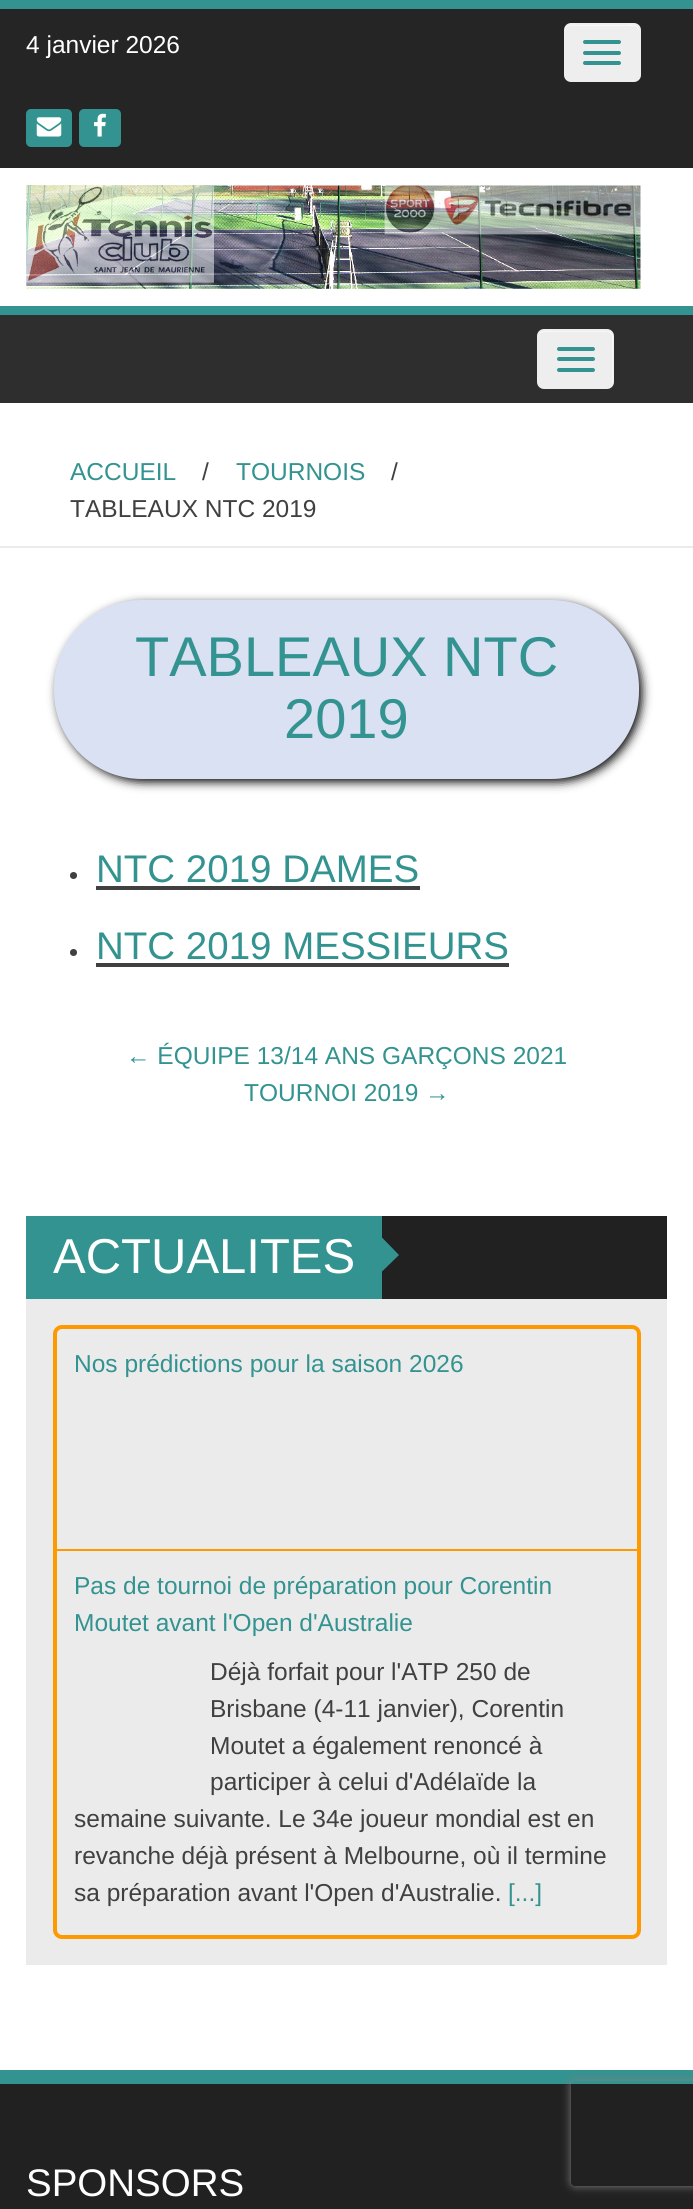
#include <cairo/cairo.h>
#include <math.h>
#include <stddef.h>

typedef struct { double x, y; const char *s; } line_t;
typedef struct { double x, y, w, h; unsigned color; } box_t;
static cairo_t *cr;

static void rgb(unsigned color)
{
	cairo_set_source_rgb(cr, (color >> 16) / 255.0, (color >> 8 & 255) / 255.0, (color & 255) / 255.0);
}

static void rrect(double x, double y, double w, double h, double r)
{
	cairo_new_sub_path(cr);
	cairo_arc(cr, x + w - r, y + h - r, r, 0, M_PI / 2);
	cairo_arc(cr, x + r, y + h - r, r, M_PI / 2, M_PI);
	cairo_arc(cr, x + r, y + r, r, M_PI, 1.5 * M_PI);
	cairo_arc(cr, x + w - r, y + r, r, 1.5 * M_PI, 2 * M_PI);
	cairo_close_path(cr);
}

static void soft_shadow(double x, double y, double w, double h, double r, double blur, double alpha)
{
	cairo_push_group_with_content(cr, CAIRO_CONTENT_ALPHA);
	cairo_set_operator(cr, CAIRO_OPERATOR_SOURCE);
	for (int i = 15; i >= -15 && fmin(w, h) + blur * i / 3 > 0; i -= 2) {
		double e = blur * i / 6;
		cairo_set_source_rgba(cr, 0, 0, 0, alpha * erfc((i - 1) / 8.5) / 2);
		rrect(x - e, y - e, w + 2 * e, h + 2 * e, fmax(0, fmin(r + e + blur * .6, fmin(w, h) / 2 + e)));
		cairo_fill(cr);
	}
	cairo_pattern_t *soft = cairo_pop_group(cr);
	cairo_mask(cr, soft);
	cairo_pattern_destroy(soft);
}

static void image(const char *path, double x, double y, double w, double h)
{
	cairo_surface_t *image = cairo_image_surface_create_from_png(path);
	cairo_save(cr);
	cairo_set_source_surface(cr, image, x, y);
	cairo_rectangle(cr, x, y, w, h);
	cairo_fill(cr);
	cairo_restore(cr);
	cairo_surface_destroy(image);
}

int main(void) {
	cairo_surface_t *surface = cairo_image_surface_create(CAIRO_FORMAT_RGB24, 693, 2209);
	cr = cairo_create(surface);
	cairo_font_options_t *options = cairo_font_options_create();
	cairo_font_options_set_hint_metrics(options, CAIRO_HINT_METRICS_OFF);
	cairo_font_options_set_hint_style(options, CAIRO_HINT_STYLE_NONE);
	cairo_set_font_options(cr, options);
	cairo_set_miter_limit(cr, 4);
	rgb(0xffffff);
	cairo_paint(cr);
	rgb(0x252525);
	cairo_rectangle(cr, 0, 9, 693, 159);
	cairo_fill(cr);
	rgb(0x339390);
	cairo_rectangle(cr, 0, 0, 693, 9);
	cairo_fill(cr);
	rgb(0xeeeeee);
	rrect(564, 23, 77, 59, 7);
	cairo_fill(cr);
	rgb(0xf7f7f7);
	cairo_new_path(cr);
	cairo_move_to(cr, 570, 26);
	cairo_line_to(cr, 634, 26);
	cairo_curve_to(cr, 636, 26, 639, 29, 639, 32);
	cairo_curve_to(cr, 639, 22, 631, 25, 623, 25);
	cairo_line_to(cr, 581, 25);
	cairo_curve_to(cr, 573, 25, 565, 22, 565, 32);
	cairo_curve_to(cr, 565, 29, 568, 26, 570, 26);
	cairo_close_path(cr);
	cairo_fill(cr);
	rgb(0x339390);
	rrect(583, 40, 38, 4, 2);
	cairo_fill(cr);
	rrect(583, 51, 38, 4, 2);
	cairo_fill(cr);
	rrect(583, 61, 38, 4, 2);
	cairo_fill(cr);
	rrect(26, 109, 46, 38, 5);
	cairo_fill(cr);
	image("img/1.png", 36, 117, 26, 20);
	rrect(79, 109, 42, 38, 5);
	cairo_fill(cr);
	image("img/2.png", 94, 113, 12, 24);
	image("img/3.png", 26, 185, 615, 104);
	rgb(0x2e2e2e);
	cairo_rectangle(cr, 0, 315, 693, 88);
	cairo_fill(cr);
	rgb(0x339390);
	cairo_rectangle(cr, 0, 306, 693, 9);
	cairo_fill(cr);
	rgb(0xeeeeee);
	rrect(537, 329, 77, 60, 7);
	cairo_fill(cr);
	rgb(0xf7f7f7);
	cairo_new_path(cr);
	cairo_move_to(cr, 544, 332);
	cairo_line_to(cr, 607, 332);
	cairo_curve_to(cr, 610, 332, 612, 335, 612, 338);
	cairo_line_to(cr, 612, 383);
	cairo_line_to(cr, 611, 386);
	cairo_curve_to(cr, 614, 383, 613, 377, 613, 374);
	cairo_line_to(cr, 613, 359);
	cairo_curve_to(cr, 613, 327, 619, 331, 587, 331);
	cairo_line_to(cr, 555, 331);
	cairo_curve_to(cr, 547, 331, 539, 328, 539, 338);
	cairo_curve_to(cr, 539, 335, 541, 332, 544, 332);
	cairo_close_path(cr);
	cairo_fill(cr);
	rgb(0x339390);
	rrect(557, 347, 38, 4, 2);
	cairo_fill(cr);
	rrect(557, 357, 38, 4, 2);
	cairo_fill(cr);
	rrect(557, 368, 38, 4, 2);
	cairo_fill(cr);
	rgb(0xebebeb);
	cairo_rectangle(cr, 0, 546, 693, 2);
	cairo_fill(cr);
	rgb(0x000000);
	soft_shadow(58, 604, 584, 178, 88, 5, 1);
	rgb(0xdae1f3);
	rrect(54, 600, 585, 179, 88);
	cairo_fill(cr);
	rgb(0x404040);
	cairo_arc(cr, 73.5, 875.5, 3.5, 0, 2 * M_PI);
	cairo_fill(cr);
	cairo_rectangle(cr, 96, 886, 324, 4);
	cairo_fill(cr);
	cairo_arc(cr, 73.5, 952.5, 3.5, 0, 2 * M_PI);
	cairo_fill(cr);
	{
		static const box_t items[] = {
			{96, 963, 413, 4, 0x404040},
			{26, 1299, 641, 666, 0xebebeb},
			{382, 1216, 285, 83, 0x212121},
			{26, 1216, 356, 83, 0x339390},
		};
		for (size_t i = 0; i < sizeof items / sizeof *items; i++) {
			rgb(items[i].color);
			cairo_rectangle(cr, items[i].x, items[i].y, items[i].w, items[i].h);
			cairo_fill(cr);
		}
	}
	cairo_new_path(cr);
	cairo_move_to(cr, 381.5, 1272);
	cairo_line_to(cr, 381.5, 1237);
	cairo_line_to(cr, 399, 1255);
	cairo_close_path(cr);
	cairo_fill(cr);
	rrect(55, 1327, 584, 610, 7);
	rgb(0xff9900);
	cairo_set_line_width(cr, 4);
	cairo_stroke(cr);
	{
		static const box_t items[] = {
			{56, 1549, 581, 2, 0xff9900},
			{0, 2084, 693, 125, 0x212121},
			{0, 2070, 693, 14, 0x339390},
		};
		for (size_t i = 0; i < sizeof items / sizeof *items; i++) {
			rgb(items[i].color);
			cairo_rectangle(cr, items[i].x, items[i].y, items[i].w, items[i].h);
			cairo_fill(cr);
		}
	}
	cairo_save(cr);
	cairo_set_fill_rule(cr, CAIRO_FILL_RULE_EVEN_ODD);
	cairo_new_path(cr);
	cairo_move_to(cr, 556, 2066);
	cairo_line_to(cr, 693, 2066);
	cairo_line_to(cr, 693, 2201);
	cairo_line_to(cr, 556, 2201);
	cairo_close_path(cr);
	cairo_move_to(cr, 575, 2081);
	cairo_line_to(cr, 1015, 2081);
	cairo_curve_to(cr, 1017, 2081, 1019, 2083, 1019, 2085);
	cairo_line_to(cr, 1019, 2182);
	cairo_curve_to(cr, 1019, 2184, 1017, 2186, 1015, 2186);
	cairo_line_to(cr, 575, 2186);
	cairo_curve_to(cr, 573, 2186, 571, 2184, 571, 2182);
	cairo_line_to(cr, 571, 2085);
	cairo_curve_to(cr, 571, 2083, 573, 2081, 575, 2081);
	cairo_close_path(cr);
	cairo_clip(cr);
	rgb(0x808080);
	soft_shadow(571, 2081, 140, 105, 4, 4.5, 1);
	cairo_restore(cr);
	cairo_select_font_face(cr, "Liberation Sans", CAIRO_FONT_SLANT_NORMAL, CAIRO_FONT_WEIGHT_NORMAL);
	cairo_set_font_size(cr, 24.5);
	rgb(0xffffff);
	cairo_move_to(cr, 26, 53);
	cairo_show_text(cr, "4 janvier 2026");
	rgb(0x339390);
	cairo_move_to(cr, 70, 480);
	cairo_show_text(cr, "ACCUEIL");
	rgb(0x404040);
	cairo_move_to(cr, 202, 480);
	cairo_show_text(cr, "/");
	rgb(0x339390);
	cairo_move_to(cr, 236, 480);
	cairo_show_text(cr, "TOURNOIS");
	rgb(0x404040);
	cairo_move_to(cr, 391, 480);
	cairo_show_text(cr, "/");
	cairo_move_to(cr, 70, 517);
	cairo_show_text(cr, "TABLEAUX NTC 2019");
	cairo_set_font_size(cr, 56);
	rgb(0x339390);
	cairo_move_to(cr, 135, 676);
	cairo_show_text(cr, "TABLEAUX NTC");
	cairo_move_to(cr, 284, 738);
	cairo_show_text(cr, "2019");
	cairo_set_font_size(cr, 38.5);
	cairo_move_to(cr, 96, 882);
	cairo_show_text(cr, "NTC 2019 DAMES");
	cairo_move_to(cr, 96, 959);
	cairo_show_text(cr, "NTC 2019 MESSIEURS");
	cairo_set_font_size(cr, 24.5);
	cairo_move_to(cr, 126, 1064);
	cairo_show_text(cr, "← ÉQUIPE 13/14 ANS GARÇONS 2021");
	cairo_move_to(cr, 244, 1101);
	cairo_show_text(cr, "TOURNOI 2019 →");
	cairo_set_font_size(cr, 49);
	rgb(0xffffff);
	cairo_move_to(cr, 53, 1273);
	cairo_show_text(cr, "ACTUALITES");
	cairo_set_font_size(cr, 24.5);
	rgb(0x339390);
	{
		static const line_t items[] = {
			{74, 1372, "Nos prédictions pour la saison 2026"},
			{74, 1594, "Pas de tournoi de préparation pour Corentin"},
			{74, 1631, "Moutet avant l'Open d'Australie"},
		};
		for (size_t i = 0; i < sizeof items / sizeof *items; i++) {
			cairo_move_to(cr, items[i].x, items[i].y);
			cairo_show_text(cr, items[i].s);
		}
	}
	rgb(0x404040);
	{
		static const line_t items[] = {
			{210, 1680, "Déjà forfait pour l'ATP 250 de"},
			{210, 1717, "Brisbane (4-11 janvier), Corentin"},
			{210, 1754, "Moutet a également renoncé à"},
			{210, 1790, "participer à celui d'Adélaïde la"},
			{74, 1827, "semaine suivante. Le 34e joueur mondial est en"},
			{74, 1864, "revanche déjà présent à Melbourne, où il termine"},
			{74, 1901, "sa préparation avant l'Open d'Australie."},
		};
		for (size_t i = 0; i < sizeof items / sizeof *items; i++) {
			cairo_move_to(cr, items[i].x, items[i].y);
			cairo_show_text(cr, items[i].s);
		}
	}
	rgb(0x339390);
	cairo_move_to(cr, 508, 1901);
	cairo_show_text(cr, "[...]");
	cairo_set_font_size(cr, 38.5);
	rgb(0xffffff);
	cairo_move_to(cr, 26, 2196);
	cairo_show_text(cr, "SPONSORS");
	cairo_surface_write_to_png(surface, "page.png");
	cairo_font_options_destroy(options);
	cairo_destroy(cr);
	cairo_surface_destroy(surface);
	return 0;
}
